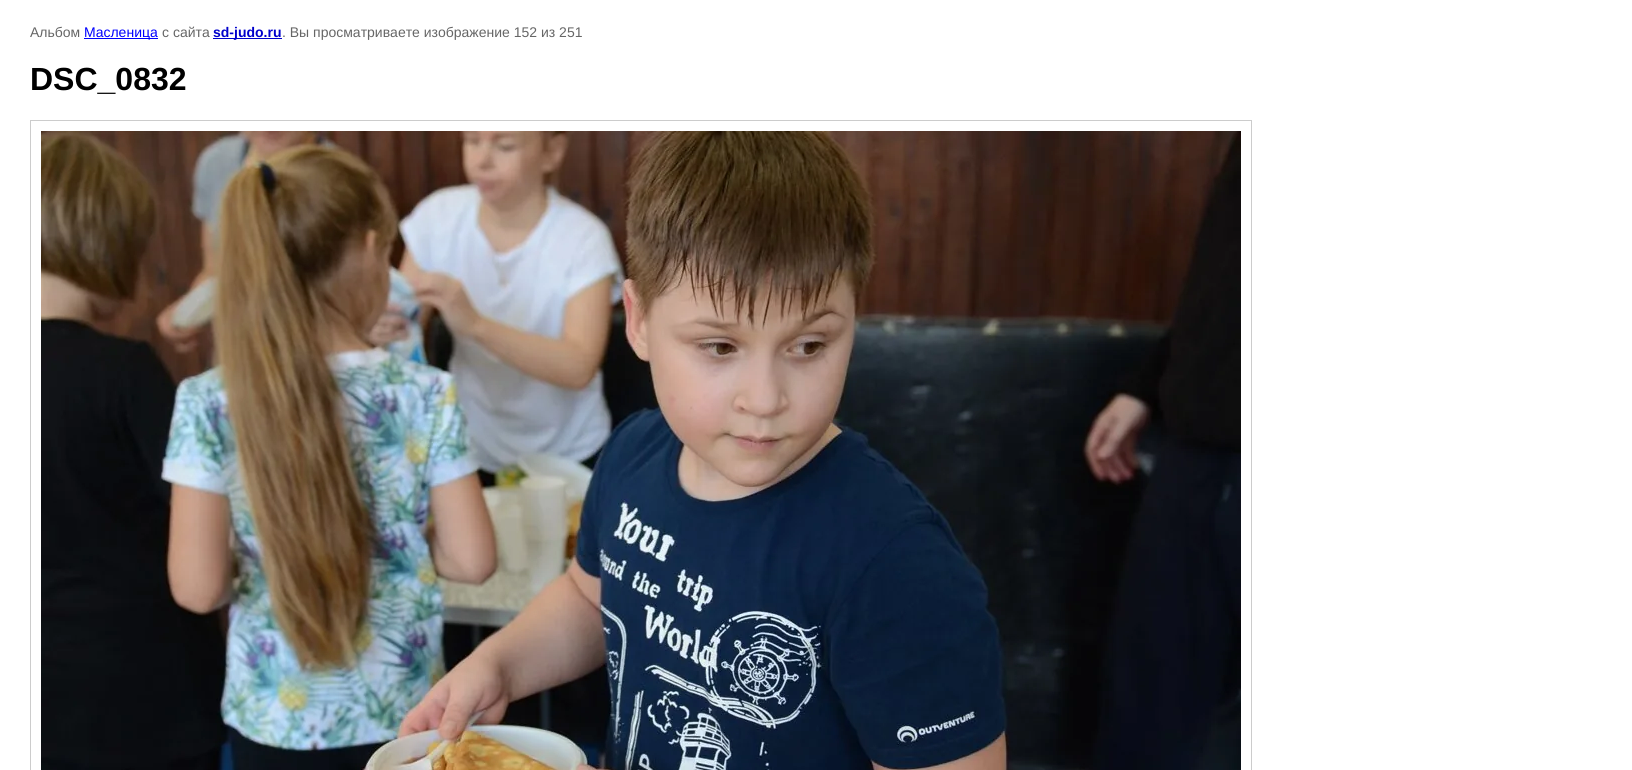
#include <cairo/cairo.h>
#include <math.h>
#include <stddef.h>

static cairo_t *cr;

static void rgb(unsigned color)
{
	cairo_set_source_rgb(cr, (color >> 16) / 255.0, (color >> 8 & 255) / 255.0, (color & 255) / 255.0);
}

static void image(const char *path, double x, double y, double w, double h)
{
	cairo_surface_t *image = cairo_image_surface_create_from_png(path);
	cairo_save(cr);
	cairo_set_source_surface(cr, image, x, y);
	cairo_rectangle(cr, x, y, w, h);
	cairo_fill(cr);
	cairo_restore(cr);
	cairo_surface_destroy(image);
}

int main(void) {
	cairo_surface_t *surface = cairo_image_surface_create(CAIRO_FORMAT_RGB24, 1632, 770);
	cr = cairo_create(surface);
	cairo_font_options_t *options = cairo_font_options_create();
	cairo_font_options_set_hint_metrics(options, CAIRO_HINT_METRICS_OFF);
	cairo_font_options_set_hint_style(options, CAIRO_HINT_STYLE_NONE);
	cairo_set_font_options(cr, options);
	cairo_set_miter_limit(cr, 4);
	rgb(0xffffff);
	cairo_paint(cr);
	rgb(0x0000ff);
	cairo_rectangle(cr, 84, 38, 74, 1);
	cairo_fill(cr);
	rgb(0x0000cc);
	cairo_rectangle(cr, 213, 38, 69, 1);
	cairo_fill(cr);
	cairo_rectangle(cr, 30.5, 120.5, 1221, 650);
	rgb(0xcccccc);
	cairo_set_line_width(cr, 1);
	cairo_stroke(cr);
	image("img/1.png", 41, 131, 1200, 639);
	cairo_select_font_face(cr, "Liberation Sans", CAIRO_FONT_SLANT_NORMAL, CAIRO_FONT_WEIGHT_NORMAL);
	cairo_set_font_size(cr, 14);
	rgb(0x666666);
	cairo_move_to(cr, 30, 37);
	cairo_show_text(cr, "Альбом");
	rgb(0x0000ff);
	cairo_move_to(cr, 84, 37);
	cairo_show_text(cr, "Масленица");
	rgb(0x666666);
	cairo_move_to(cr, 162, 37);
	cairo_show_text(cr, "с сайта");
	cairo_select_font_face(cr, "Liberation Sans", CAIRO_FONT_SLANT_NORMAL, CAIRO_FONT_WEIGHT_BOLD);
	rgb(0x0000cc);
	cairo_move_to(cr, 213, 37);
	cairo_show_text(cr, "sd-judo.ru");
	cairo_select_font_face(cr, "Liberation Sans", CAIRO_FONT_SLANT_NORMAL, CAIRO_FONT_WEIGHT_NORMAL);
	rgb(0x666666);
	cairo_move_to(cr, 282, 37);
	cairo_show_text(cr, ". Вы просматриваете изображение 152 из 251");
	cairo_select_font_face(cr, "Liberation Sans", CAIRO_FONT_SLANT_NORMAL, CAIRO_FONT_WEIGHT_BOLD);
	cairo_set_font_size(cr, 32);
	rgb(0x000000);
	cairo_move_to(cr, 30, 90);
	cairo_show_text(cr, "DSC_0832");
	cairo_surface_write_to_png(surface, "page.png");
	cairo_font_options_destroy(options);
	cairo_destroy(cr);
	cairo_surface_destroy(surface);
	return 0;
}
